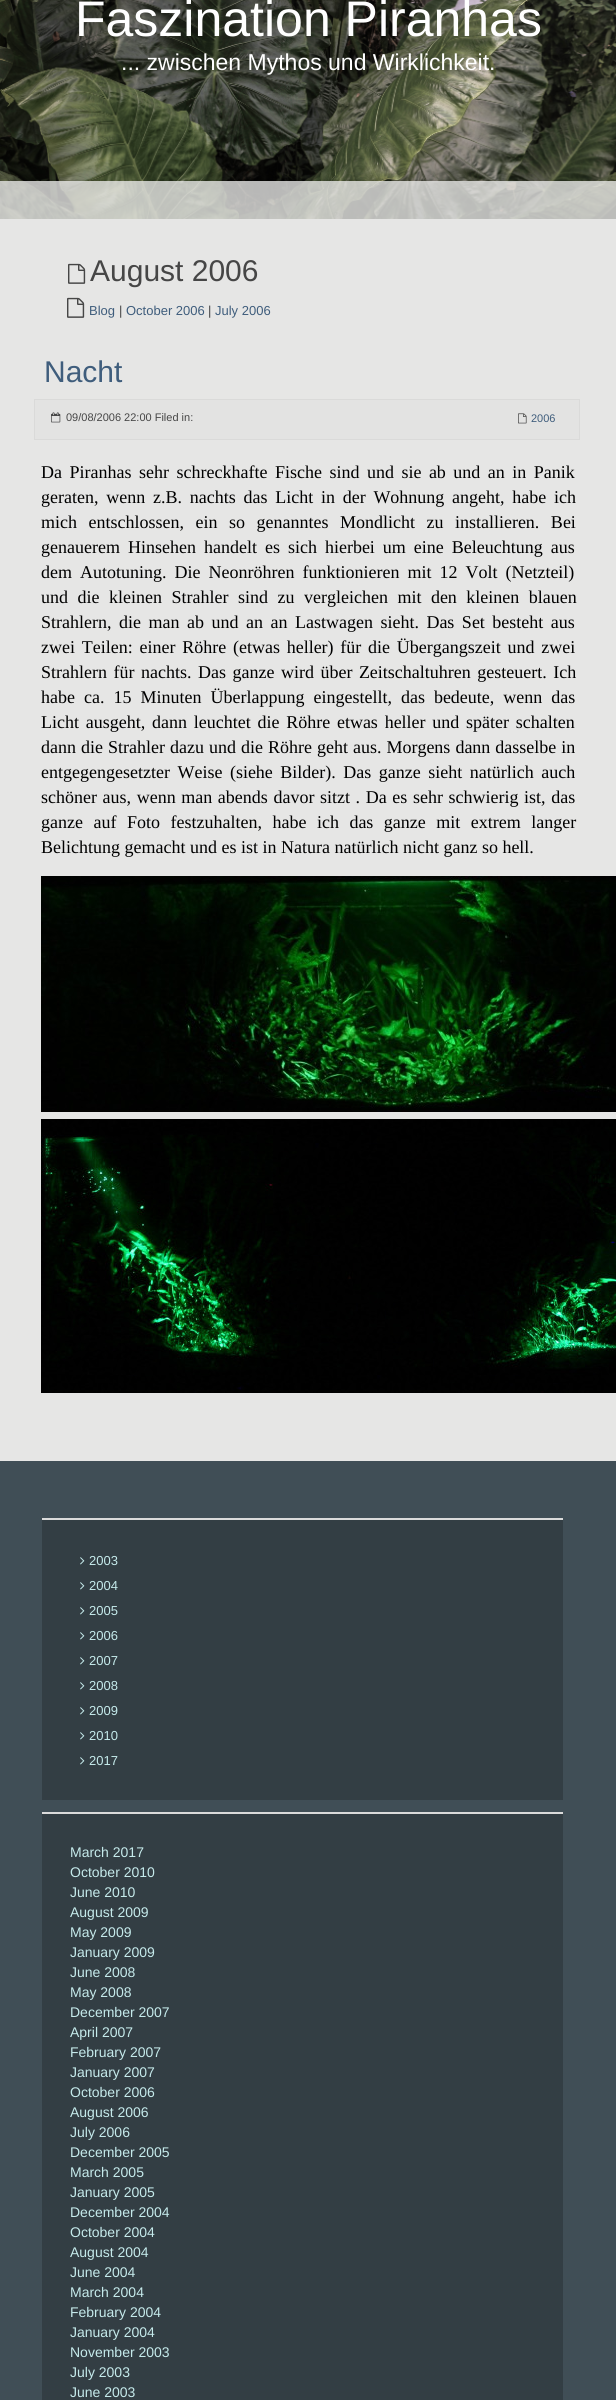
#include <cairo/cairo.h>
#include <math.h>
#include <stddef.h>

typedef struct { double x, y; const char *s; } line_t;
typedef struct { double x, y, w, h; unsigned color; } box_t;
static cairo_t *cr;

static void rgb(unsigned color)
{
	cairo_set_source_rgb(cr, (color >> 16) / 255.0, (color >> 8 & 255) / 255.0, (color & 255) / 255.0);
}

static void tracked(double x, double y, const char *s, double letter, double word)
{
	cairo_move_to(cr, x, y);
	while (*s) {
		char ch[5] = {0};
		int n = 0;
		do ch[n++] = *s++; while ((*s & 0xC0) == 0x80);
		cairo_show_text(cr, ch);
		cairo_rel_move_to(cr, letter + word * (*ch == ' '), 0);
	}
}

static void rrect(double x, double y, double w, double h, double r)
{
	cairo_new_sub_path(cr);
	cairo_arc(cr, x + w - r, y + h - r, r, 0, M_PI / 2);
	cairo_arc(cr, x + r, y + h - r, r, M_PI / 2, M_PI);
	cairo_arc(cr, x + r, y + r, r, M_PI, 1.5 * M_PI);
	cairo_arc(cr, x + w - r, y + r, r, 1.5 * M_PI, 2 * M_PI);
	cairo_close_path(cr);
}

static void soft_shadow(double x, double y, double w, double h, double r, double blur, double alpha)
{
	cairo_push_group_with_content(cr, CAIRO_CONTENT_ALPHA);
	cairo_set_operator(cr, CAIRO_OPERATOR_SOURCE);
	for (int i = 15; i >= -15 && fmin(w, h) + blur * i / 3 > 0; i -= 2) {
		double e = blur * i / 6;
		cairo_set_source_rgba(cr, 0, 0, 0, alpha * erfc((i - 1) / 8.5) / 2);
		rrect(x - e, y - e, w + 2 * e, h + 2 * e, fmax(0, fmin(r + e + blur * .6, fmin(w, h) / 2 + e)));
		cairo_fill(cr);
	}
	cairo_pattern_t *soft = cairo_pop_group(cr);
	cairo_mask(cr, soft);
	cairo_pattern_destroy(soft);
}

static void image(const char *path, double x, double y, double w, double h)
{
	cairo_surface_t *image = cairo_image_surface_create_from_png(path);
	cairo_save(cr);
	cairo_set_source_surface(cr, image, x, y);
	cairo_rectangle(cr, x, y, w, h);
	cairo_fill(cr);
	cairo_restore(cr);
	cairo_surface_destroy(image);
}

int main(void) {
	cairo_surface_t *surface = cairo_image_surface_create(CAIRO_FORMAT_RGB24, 616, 2400);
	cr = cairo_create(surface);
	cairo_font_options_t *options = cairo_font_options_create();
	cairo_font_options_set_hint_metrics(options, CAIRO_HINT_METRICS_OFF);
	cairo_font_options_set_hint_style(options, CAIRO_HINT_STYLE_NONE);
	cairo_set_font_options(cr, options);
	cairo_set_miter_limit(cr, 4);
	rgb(0xffffff);
	cairo_paint(cr);
	image("img/1.png", 0, 0, 616, 219);
	cairo_save(cr);
	cairo_rectangle(cr, 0, 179, 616, 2);
	cairo_clip(cr);
	rgb(0x000000);
	soft_shadow(0, 183, 616, 88, 0, 3, 0.3);
	cairo_restore(cr);
	cairo_set_source_rgba(cr, 0.902, 0.902, 0.898, 0.8);
	cairo_rectangle(cr, 0, 181, 616, 38);
	cairo_fill(cr);
	rgb(0xe6e6e5);
	cairo_rectangle(cr, 0, 219, 616, 1242);
	cairo_fill(cr);
	image("img/2.png", 68, 263, 18, 21);
	image("img/2.png", 67, 297, 18, 21);
	rgb(0xe3e3e2);
	cairo_rectangle(cr, 34.5, 399.5, 545, 40);
	cairo_fill_preserve(cr);
	rgb(0xdadad9);
	cairo_set_line_width(cr, 1);
	cairo_stroke(cr);
	image("img/3.png", 51, 412, 10, 11);
	image("img/4.png", 518, 413, 9, 11);
	image("img/5.png", 41, 876, 575, 236);
	image("img/6.png", 41, 1119, 575, 274);
	{
		static const box_t items[] = {
			{0, 1461, 616, 939, 0x404e56},
			{42, 1520, 521, 280, 0x333e44},
			{42, 1518, 521, 2, 0xdbdbdb},
		};
		for (size_t i = 0; i < sizeof items / sizeof *items; i++) {
			rgb(items[i].color);
			cairo_rectangle(cr, items[i].x, items[i].y, items[i].w, items[i].h);
			cairo_fill(cr);
		}
	}
	image("img/7.png", 80, 1557, 5, 8);
	image("img/7.png", 80, 1582, 5, 8);
	image("img/7.png", 80, 1607, 5, 8);
	image("img/7.png", 80, 1632, 5, 8);
	image("img/7.png", 80, 1657, 5, 8);
	image("img/7.png", 80, 1682, 5, 8);
	image("img/7.png", 80, 1707, 5, 8);
	image("img/7.png", 80, 1732, 5, 8);
	image("img/7.png", 80, 1757, 5, 8);
	rgb(0x333e44);
	cairo_rectangle(cr, 42, 1814, 521, 586);
	cairo_fill(cr);
	rgb(0xdbdbdb);
	cairo_rectangle(cr, 42, 1812, 521, 2);
	cairo_fill(cr);
	cairo_select_font_face(cr, "Liberation Sans", CAIRO_FONT_SLANT_NORMAL, CAIRO_FONT_WEIGHT_NORMAL);
	cairo_set_font_size(cr, 50);
	rgb(0xffffff);
	cairo_move_to(cr, 75, 36);
	cairo_show_text(cr, "Faszination Piranhas");
	cairo_set_font_size(cr, 23);
	cairo_move_to(cr, 121, 70);
	cairo_show_text(cr, "... zwischen Mythos und Wirklichkeit.");
	cairo_set_font_size(cr, 30);
	rgb(0x464646);
	cairo_move_to(cr, 90, 281);
	cairo_show_text(cr, "August 2006");
	cairo_set_font_size(cr, 13);
	rgb(0x3f5d7c);
	cairo_move_to(cr, 89, 315);
	cairo_show_text(cr, "Blog");
	rgb(0x464646);
	cairo_move_to(cr, 119, 315);
	cairo_show_text(cr, "|");
	rgb(0x3f5d7c);
	cairo_move_to(cr, 126, 315);
	cairo_show_text(cr, "October 2006");
	rgb(0x464646);
	cairo_move_to(cr, 208, 315);
	cairo_show_text(cr, "|");
	rgb(0x3f5d7c);
	cairo_move_to(cr, 215, 315);
	cairo_show_text(cr, "July 2006");
	cairo_set_font_size(cr, 30);
	cairo_move_to(cr, 44, 382);
	cairo_show_text(cr, "Nacht");
	cairo_set_font_size(cr, 11);
	rgb(0x464646);
	cairo_move_to(cr, 66, 421);
	cairo_show_text(cr, "09/08/2006 22:00 Filed in:");
	rgb(0x3f5d7c);
	cairo_move_to(cr, 531, 422);
	cairo_show_text(cr, "2006");
	cairo_select_font_face(cr, "Liberation Serif", CAIRO_FONT_SLANT_NORMAL, CAIRO_FONT_WEIGHT_NORMAL);
	cairo_set_font_size(cr, 18);
	rgb(0x000000);
	tracked(41, 478, "Da Piranhas sehr schreckhafte Fische sind und sie ab und an in Panik", 0, 3);
	tracked(41, 503, "geraten, wenn z.B. nachts das Licht in der Wohnung angeht, habe ich", 0, 3.25);
	tracked(41, 528, "mich entschlossen, ein so genanntes Mondlicht zu installieren. Bei", 0, 7);
	tracked(41, 553, "genauerem Hinsehen handelt es sich hierbei um eine Beleuchtung aus", 0, 3.5);
	tracked(41, 578, "dem Autotuning. Die Neonröhren funktionieren mit 12 Volt (Netzteil)", 0, 3.5);
	tracked(41, 603, "und die kleinen Strahler sind zu vergleichen mit den kleinen blauen", 0, 5);
	tracked(41, 628, "Strahlern, die man ab und an an Lastwagen sieht. Das Set besteht aus", 0, 3);
	tracked(41, 653, "zwei Teilen: einer Röhre (etwas heller) für die Übergangszeit und zwei", 0, 2.25);
	tracked(41, 678, "Strahlern für nachts. Das ganze wird über Zeitschaltuhren gesteuert. Ich", 0, 2);
	tracked(41, 703, "habe ca. 15 Minuten Überlappung eingestellt, das bedeute, wenn das", 0, 4.5);
	tracked(41, 728, "Licht ausgeht, dann leuchtet die Röhre etwas heller und später schalten", 0, 2.25);
	tracked(41, 753, "dann die Strahler dazu und die Röhre geht aus. Morgens dann dasselbe in", 0, 0.5);
	tracked(41, 778, "entgegengesetzter Weise (siehe Bilder). Das ganze sieht natürlich auch", 0, 3);
	tracked(41, 803, "schöner aus, wenn man abends davor sitzt . Da es sehr schwierig ist, das", 0, 1.1);
	tracked(41, 828, "ganze auf Foto festzuhalten, habe ich das ganze mit extrem langer", 0, 6);
	cairo_move_to(cr, 41, 853);
	cairo_show_text(cr, "Belichtung gemacht und es ist in Natura natürlich nicht ganz so hell.");
	cairo_select_font_face(cr, "Liberation Sans", CAIRO_FONT_SLANT_NORMAL, CAIRO_FONT_WEIGHT_NORMAL);
	cairo_set_font_size(cr, 13);
	rgb(0xc5eaeb);
	{
		static const line_t items[] = {
			{89, 1565, "2003"},
			{89, 1590, "2004"},
			{89, 1615, "2005"},
			{89, 1640, "2006"},
			{89, 1665, "2007"},
			{89, 1690, "2008"},
			{89, 1715, "2009"},
			{89, 1740, "2010"},
			{89, 1765, "2017"},
		};
		for (size_t i = 0; i < sizeof items / sizeof *items; i++) {
			cairo_move_to(cr, items[i].x, items[i].y);
			cairo_show_text(cr, items[i].s);
		}
	}
	cairo_set_font_size(cr, 14);
	{
		static const line_t items[] = {
			{70, 1857, "March 2017"},
			{70, 1877, "October 2010"},
			{70, 1897, "June 2010"},
			{70, 1917, "August 2009"},
			{70, 1937, "May 2009"},
			{70, 1957, "January 2009"},
			{70, 1977, "June 2008"},
			{70, 1997, "May 2008"},
			{70, 2017, "December 2007"},
			{70, 2037, "April 2007"},
			{70, 2057, "February 2007"},
			{70, 2077, "January 2007"},
			{70, 2097, "October 2006"},
			{70, 2117, "August 2006"},
			{70, 2137, "July 2006"},
			{70, 2157, "December 2005"},
			{70, 2177, "March 2005"},
			{70, 2197, "January 2005"},
			{70, 2217, "December 2004"},
			{70, 2237, "October 2004"},
			{70, 2257, "August 2004"},
			{70, 2277, "June 2004"},
			{70, 2297, "March 2004"},
			{70, 2317, "February 2004"},
			{70, 2337, "January 2004"},
			{70, 2357, "November 2003"},
			{70, 2377, "July 2003"},
			{70, 2397, "June 2003"},
		};
		for (size_t i = 0; i < sizeof items / sizeof *items; i++) {
			cairo_move_to(cr, items[i].x, items[i].y);
			cairo_show_text(cr, items[i].s);
		}
	}
	cairo_surface_write_to_png(surface, "page.png");
	cairo_font_options_destroy(options);
	cairo_destroy(cr);
	cairo_surface_destroy(surface);
	return 0;
}
